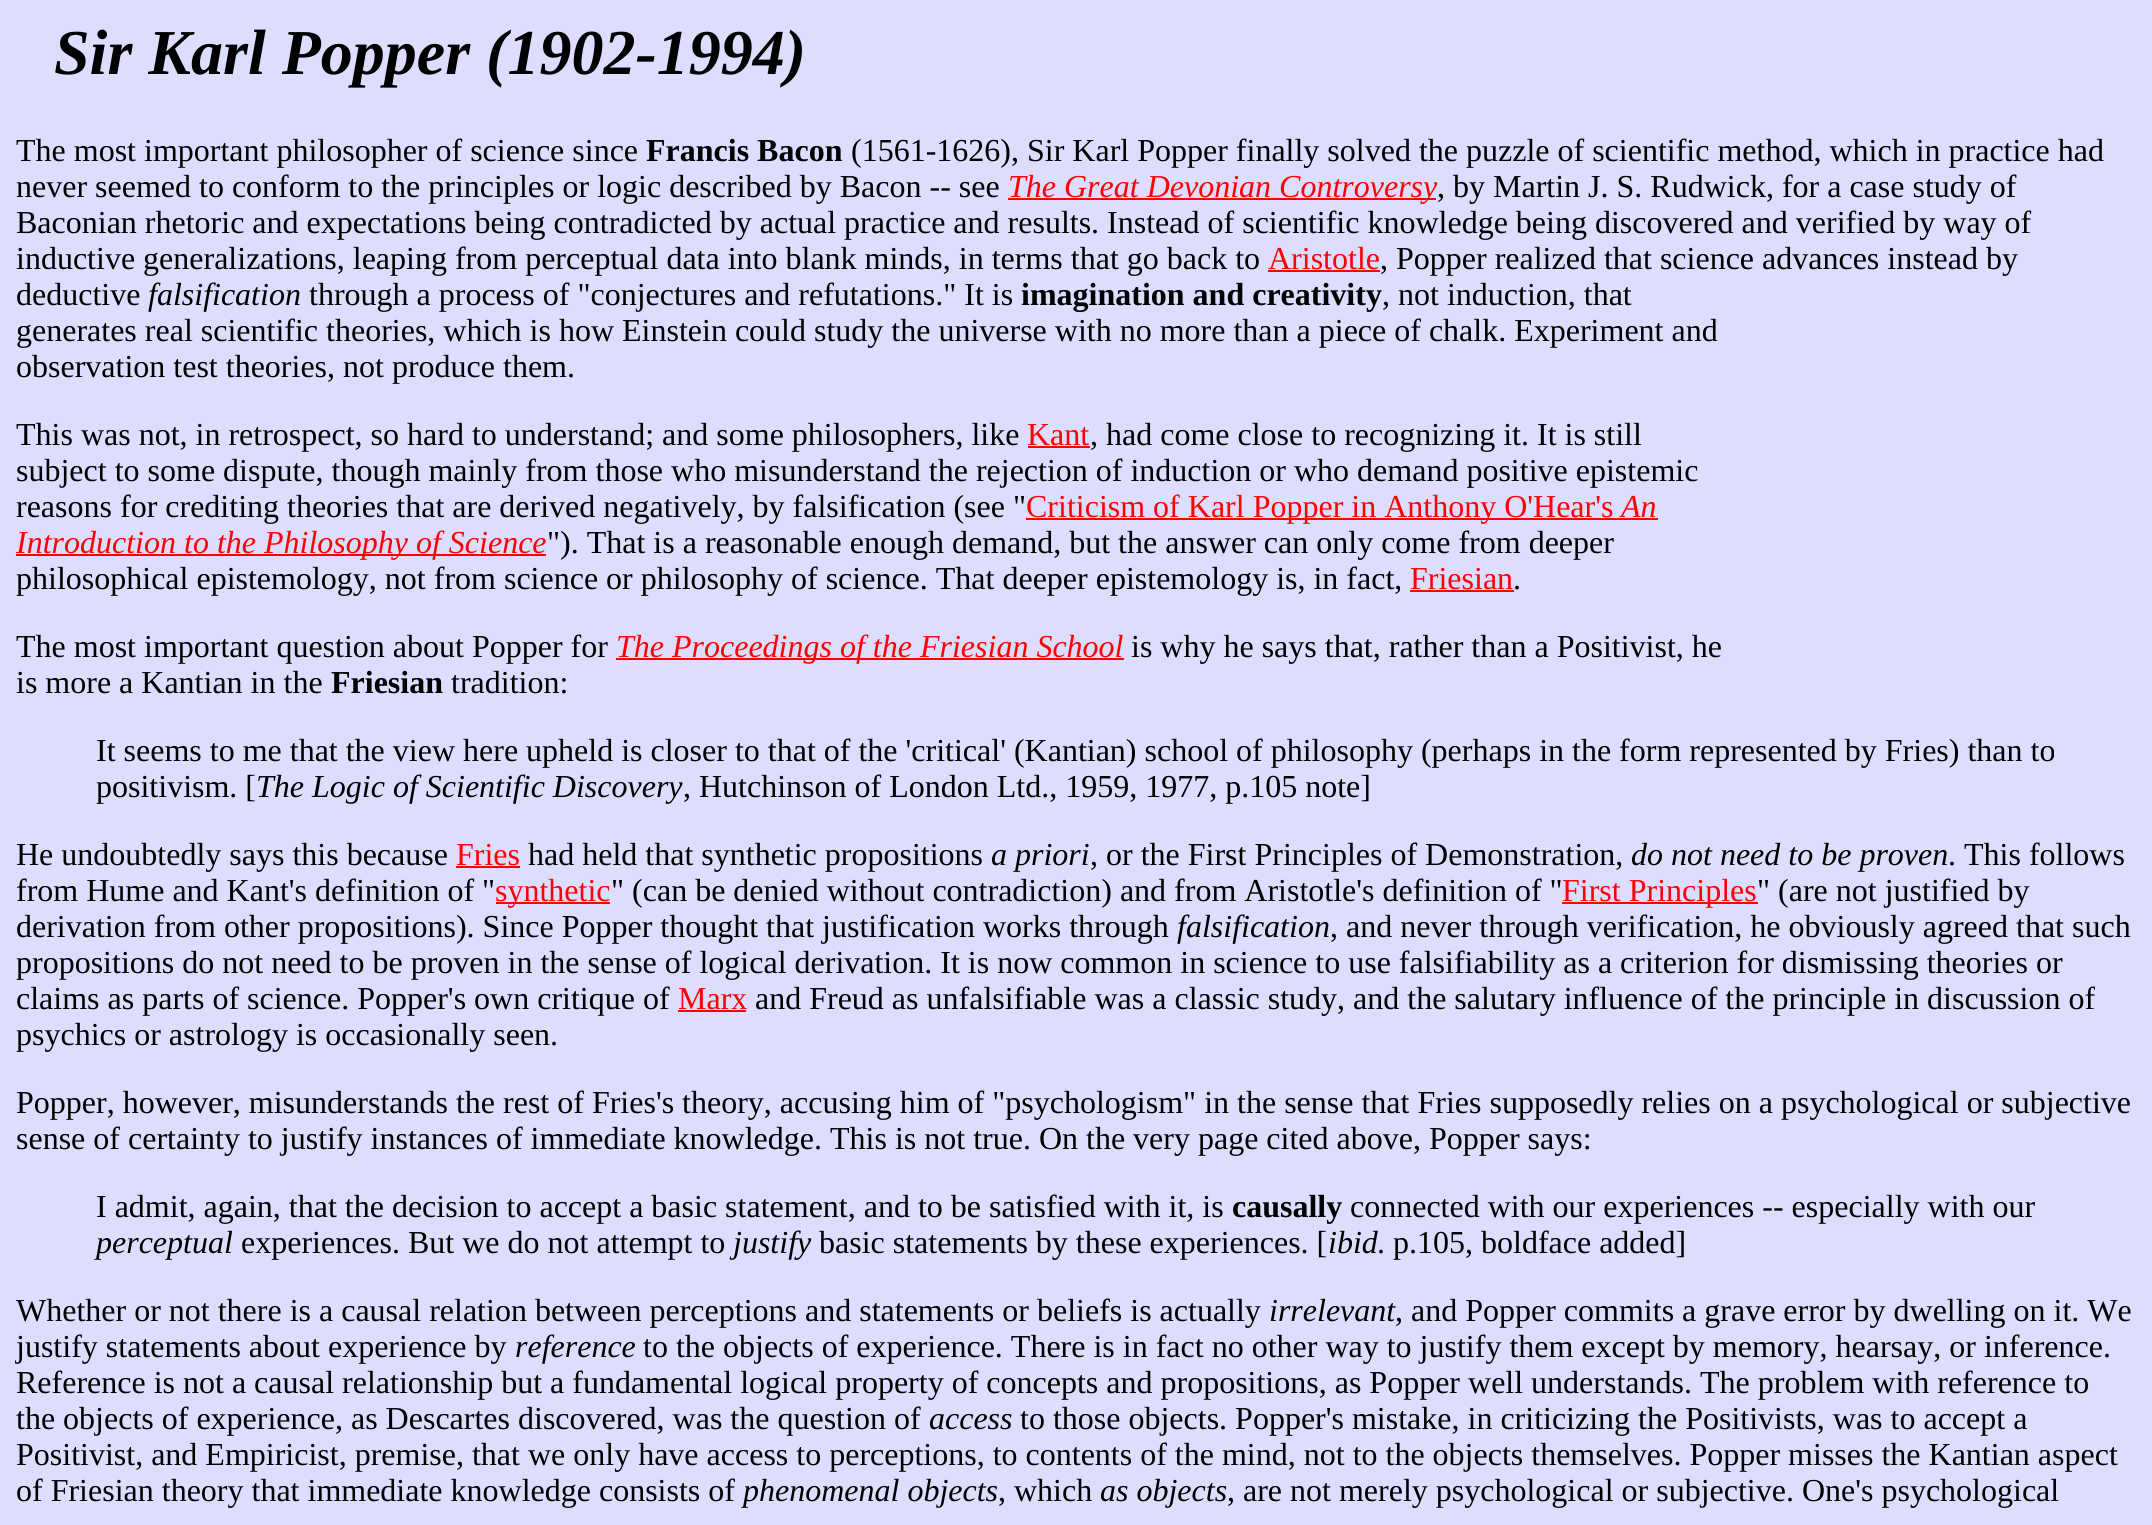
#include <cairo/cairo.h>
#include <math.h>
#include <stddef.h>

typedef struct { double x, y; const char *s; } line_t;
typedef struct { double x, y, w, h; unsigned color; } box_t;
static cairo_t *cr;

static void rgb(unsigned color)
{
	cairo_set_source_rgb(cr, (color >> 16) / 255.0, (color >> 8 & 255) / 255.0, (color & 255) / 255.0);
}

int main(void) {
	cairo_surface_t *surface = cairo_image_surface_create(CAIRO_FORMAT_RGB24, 2152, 1525);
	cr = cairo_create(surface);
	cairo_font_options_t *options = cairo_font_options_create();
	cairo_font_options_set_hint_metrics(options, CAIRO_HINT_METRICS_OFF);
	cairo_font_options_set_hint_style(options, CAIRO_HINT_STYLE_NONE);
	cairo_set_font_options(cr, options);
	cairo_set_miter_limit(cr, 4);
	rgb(0xddddff);
	cairo_paint(cr);
	{
		static const box_t items[] = {
			{1008, 198, 428, 2, 0xff0000},
			{1268, 270, 112, 2, 0xff0000},
			{1028, 446, 62, 2, 0xff0000},
			{1026, 518, 632, 2, 0xff0000},
			{16, 554, 530, 2, 0xff0000},
			{1410, 590, 104, 2, 0xff0000},
			{616, 658, 508, 2, 0xff0000},
			{456, 866, 64, 2, 0xff0000},
			{496, 902, 114, 2, 0xff0000},
			{1562, 902, 196, 2, 0xff0000},
			{678, 1010, 68, 2, 0xff0000},
		};
		for (size_t i = 0; i < sizeof items / sizeof *items; i++) {
			rgb(items[i].color);
			cairo_rectangle(cr, items[i].x, items[i].y, items[i].w, items[i].h);
			cairo_fill(cr);
		}
	}
	cairo_select_font_face(cr, "Liberation Serif", CAIRO_FONT_SLANT_ITALIC, CAIRO_FONT_WEIGHT_BOLD);
	cairo_set_font_size(cr, 64);
	rgb(0x000000);
	cairo_move_to(cr, 54, 74);
	cairo_show_text(cr, "Sir Karl Popper (1902-1994)");
	cairo_select_font_face(cr, "Liberation Serif", CAIRO_FONT_SLANT_NORMAL, CAIRO_FONT_WEIGHT_NORMAL);
	cairo_set_font_size(cr, 32);
	cairo_move_to(cr, 16, 161);
	cairo_show_text(cr, "The most important philosopher of science since");
	cairo_select_font_face(cr, "Liberation Serif", CAIRO_FONT_SLANT_NORMAL, CAIRO_FONT_WEIGHT_BOLD);
	cairo_move_to(cr, 646, 161);
	cairo_show_text(cr, "Francis Bacon");
	cairo_select_font_face(cr, "Liberation Serif", CAIRO_FONT_SLANT_NORMAL, CAIRO_FONT_WEIGHT_NORMAL);
	cairo_move_to(cr, 851, 161);
	cairo_show_text(cr, "(1561-1626), Sir Karl Popper finally solved the puzzle of scientific method, which in practice had");
	cairo_move_to(cr, 16, 197);
	cairo_show_text(cr, "never seemed to conform to the principles or logic described by Bacon -- see");
	cairo_select_font_face(cr, "Liberation Serif", CAIRO_FONT_SLANT_ITALIC, CAIRO_FONT_WEIGHT_NORMAL);
	rgb(0xff0000);
	cairo_move_to(cr, 1008, 197);
	cairo_show_text(cr, "The Great Devonian Controversy");
	cairo_select_font_face(cr, "Liberation Serif", CAIRO_FONT_SLANT_NORMAL, CAIRO_FONT_WEIGHT_NORMAL);
	rgb(0x000000);
	{
		static const line_t items[] = {
			{1437, 197, ", by Martin J. S. Rudwick, for a case study of"},
			{16, 233, "Baconian rhetoric and expectations being contradicted by actual practice and results. Instead of scientific knowledge being discovered and verified by way of"},
			{16, 269, "inductive generalizations, leaping from perceptual data into blank minds, in terms that go back to"},
		};
		for (size_t i = 0; i < sizeof items / sizeof *items; i++) {
			cairo_move_to(cr, items[i].x, items[i].y);
			cairo_show_text(cr, items[i].s);
		}
	}
	rgb(0xff0000);
	cairo_move_to(cr, 1268, 269);
	cairo_show_text(cr, "Aristotle");
	rgb(0x000000);
	cairo_move_to(cr, 1380, 269);
	cairo_show_text(cr, ", Popper realized that science advances instead by");
	cairo_move_to(cr, 16, 305);
	cairo_show_text(cr, "deductive");
	cairo_select_font_face(cr, "Liberation Serif", CAIRO_FONT_SLANT_ITALIC, CAIRO_FONT_WEIGHT_NORMAL);
	cairo_move_to(cr, 148, 305);
	cairo_show_text(cr, "falsification");
	cairo_select_font_face(cr, "Liberation Serif", CAIRO_FONT_SLANT_NORMAL, CAIRO_FONT_WEIGHT_NORMAL);
	cairo_move_to(cr, 309, 305);
	cairo_show_text(cr, "through a process of \"conjectures and refutations.\" It is");
	cairo_select_font_face(cr, "Liberation Serif", CAIRO_FONT_SLANT_NORMAL, CAIRO_FONT_WEIGHT_BOLD);
	cairo_move_to(cr, 1021, 305);
	cairo_show_text(cr, "imagination and creativity");
	cairo_select_font_face(cr, "Liberation Serif", CAIRO_FONT_SLANT_NORMAL, CAIRO_FONT_WEIGHT_NORMAL);
	{
		static const line_t items[] = {
			{1382, 305, ", not induction, that"},
			{16, 341, "generates real scientific theories, which is how Einstein could study the universe with no more than a piece of chalk. Experiment and"},
			{16, 377, "observation test theories, not produce them."},
			{16, 445, "This was not, in retrospect, so hard to understand; and some philosophers, like"},
		};
		for (size_t i = 0; i < sizeof items / sizeof *items; i++) {
			cairo_move_to(cr, items[i].x, items[i].y);
			cairo_show_text(cr, items[i].s);
		}
	}
	rgb(0xff0000);
	cairo_move_to(cr, 1027, 445);
	cairo_show_text(cr, "Kant");
	rgb(0x000000);
	{
		static const line_t items[] = {
			{1090, 445, ", had come close to recognizing it. It is still"},
			{16, 481, "subject to some dispute, though mainly from those who misunderstand the rejection of induction or who demand positive epistemic"},
			{16, 517, "reasons for crediting theories that are derived negatively, by falsification (see \""},
		};
		for (size_t i = 0; i < sizeof items / sizeof *items; i++) {
			cairo_move_to(cr, items[i].x, items[i].y);
			cairo_show_text(cr, items[i].s);
		}
	}
	rgb(0xff0000);
	cairo_move_to(cr, 1026, 517);
	cairo_show_text(cr, "Criticism of Karl Popper in Anthony O'Hear's");
	cairo_select_font_face(cr, "Liberation Serif", CAIRO_FONT_SLANT_ITALIC, CAIRO_FONT_WEIGHT_NORMAL);
	cairo_move_to(cr, 1621, 517);
	cairo_show_text(cr, "An");
	cairo_move_to(cr, 16, 553);
	cairo_show_text(cr, "Introduction to the Philosophy of Science");
	cairo_select_font_face(cr, "Liberation Serif", CAIRO_FONT_SLANT_NORMAL, CAIRO_FONT_WEIGHT_NORMAL);
	rgb(0x000000);
	cairo_move_to(cr, 547, 553);
	cairo_show_text(cr, "\"). That is a reasonable enough demand, but the answer can only come from deeper");
	cairo_move_to(cr, 16, 589);
	cairo_show_text(cr, "philosophical epistemology, not from science or philosophy of science. That deeper epistemology is, in fact,");
	rgb(0xff0000);
	cairo_move_to(cr, 1410, 589);
	cairo_show_text(cr, "Friesian");
	rgb(0x000000);
	cairo_move_to(cr, 1513, 589);
	cairo_show_text(cr, ".");
	cairo_move_to(cr, 16, 657);
	cairo_show_text(cr, "The most important question about Popper for");
	cairo_select_font_face(cr, "Liberation Serif", CAIRO_FONT_SLANT_ITALIC, CAIRO_FONT_WEIGHT_NORMAL);
	rgb(0xff0000);
	cairo_move_to(cr, 616, 657);
	cairo_show_text(cr, "The Proceedings of the Friesian School");
	cairo_select_font_face(cr, "Liberation Serif", CAIRO_FONT_SLANT_NORMAL, CAIRO_FONT_WEIGHT_NORMAL);
	rgb(0x000000);
	cairo_move_to(cr, 1131, 657);
	cairo_show_text(cr, "is why he says that, rather than a Positivist, he");
	cairo_move_to(cr, 16, 693);
	cairo_show_text(cr, "is more a Kantian in the");
	cairo_select_font_face(cr, "Liberation Serif", CAIRO_FONT_SLANT_NORMAL, CAIRO_FONT_WEIGHT_BOLD);
	cairo_move_to(cr, 331, 693);
	cairo_show_text(cr, "Friesian");
	cairo_select_font_face(cr, "Liberation Serif", CAIRO_FONT_SLANT_NORMAL, CAIRO_FONT_WEIGHT_NORMAL);
	{
		static const line_t items[] = {
			{451, 693, "tradition:"},
			{96, 761, "It seems to me that the view here upheld is closer to that of the 'critical' (Kantian) school of philosophy (perhaps in the form represented by Fries) than to"},
			{96, 797, "positivism. ["},
		};
		for (size_t i = 0; i < sizeof items / sizeof *items; i++) {
			cairo_move_to(cr, items[i].x, items[i].y);
			cairo_show_text(cr, items[i].s);
		}
	}
	cairo_select_font_face(cr, "Liberation Serif", CAIRO_FONT_SLANT_ITALIC, CAIRO_FONT_WEIGHT_NORMAL);
	cairo_move_to(cr, 256, 797);
	cairo_show_text(cr, "The Logic of Scientific Discovery");
	cairo_select_font_face(cr, "Liberation Serif", CAIRO_FONT_SLANT_NORMAL, CAIRO_FONT_WEIGHT_NORMAL);
	cairo_move_to(cr, 683, 797);
	cairo_show_text(cr, ", Hutchinson of London Ltd., 1959, 1977, p.105 note]");
	cairo_move_to(cr, 16, 865);
	cairo_show_text(cr, "He undoubtedly says this because");
	rgb(0xff0000);
	cairo_move_to(cr, 456, 865);
	cairo_show_text(cr, "Fries");
	rgb(0x000000);
	cairo_move_to(cr, 528, 865);
	cairo_show_text(cr, "had held that synthetic propositions");
	cairo_select_font_face(cr, "Liberation Serif", CAIRO_FONT_SLANT_ITALIC, CAIRO_FONT_WEIGHT_NORMAL);
	cairo_move_to(cr, 991, 865);
	cairo_show_text(cr, "a priori");
	cairo_select_font_face(cr, "Liberation Serif", CAIRO_FONT_SLANT_NORMAL, CAIRO_FONT_WEIGHT_NORMAL);
	cairo_move_to(cr, 1090, 865);
	cairo_show_text(cr, ", or the First Principles of Demonstration,");
	cairo_select_font_face(cr, "Liberation Serif", CAIRO_FONT_SLANT_ITALIC, CAIRO_FONT_WEIGHT_NORMAL);
	cairo_move_to(cr, 1631, 865);
	cairo_show_text(cr, "do not need to be proven");
	cairo_select_font_face(cr, "Liberation Serif", CAIRO_FONT_SLANT_NORMAL, CAIRO_FONT_WEIGHT_NORMAL);
	cairo_move_to(cr, 1948, 865);
	cairo_show_text(cr, ". This follows");
	cairo_move_to(cr, 16, 901);
	cairo_show_text(cr, "from Hume and Kant's definition of \"");
	rgb(0xff0000);
	cairo_move_to(cr, 495, 901);
	cairo_show_text(cr, "synthetic");
	rgb(0x000000);
	cairo_move_to(cr, 611, 901);
	cairo_show_text(cr, "\" (can be denied without contradiction) and from Aristotle's definition of \"");
	rgb(0xff0000);
	cairo_move_to(cr, 1562, 901);
	cairo_show_text(cr, "First Principles");
	rgb(0x000000);
	cairo_move_to(cr, 1757, 901);
	cairo_show_text(cr, "\" (are not justified by");
	cairo_move_to(cr, 16, 937);
	cairo_show_text(cr, "derivation from other propositions). Since Popper thought that justification works through");
	cairo_select_font_face(cr, "Liberation Serif", CAIRO_FONT_SLANT_ITALIC, CAIRO_FONT_WEIGHT_NORMAL);
	cairo_move_to(cr, 1177, 937);
	cairo_show_text(cr, "falsification");
	cairo_select_font_face(cr, "Liberation Serif", CAIRO_FONT_SLANT_NORMAL, CAIRO_FONT_WEIGHT_NORMAL);
	{
		static const line_t items[] = {
			{1330, 937, ", and never through verification, he obviously agreed that such"},
			{16, 973, "propositions do not need to be proven in the sense of logical derivation. It is now common in science to use falsifiability as a criterion for dismissing theories or"},
			{16, 1009, "claims as parts of science. Popper's own critique of"},
		};
		for (size_t i = 0; i < sizeof items / sizeof *items; i++) {
			cairo_move_to(cr, items[i].x, items[i].y);
			cairo_show_text(cr, items[i].s);
		}
	}
	rgb(0xff0000);
	cairo_move_to(cr, 678, 1009);
	cairo_show_text(cr, "Marx");
	rgb(0x000000);
	{
		static const line_t items[] = {
			{755, 1009, "and Freud as unfalsifiable was a classic study, and the salutary influence of the principle in discussion of"},
			{16, 1045, "psychics or astrology is occasionally seen."},
			{16, 1113, "Popper, however, misunderstands the rest of Fries's theory, accusing him of \"psychologism\" in the sense that Fries supposedly relies on a psychological or subjective"},
			{16, 1149, "sense of certainty to justify instances of immediate knowledge. This is not true. On the very page cited above, Popper says:"},
			{96, 1217, "I admit, again, that the decision to accept a basic statement, and to be satisfied with it, is"},
		};
		for (size_t i = 0; i < sizeof items / sizeof *items; i++) {
			cairo_move_to(cr, items[i].x, items[i].y);
			cairo_show_text(cr, items[i].s);
		}
	}
	cairo_select_font_face(cr, "Liberation Serif", CAIRO_FONT_SLANT_NORMAL, CAIRO_FONT_WEIGHT_BOLD);
	cairo_move_to(cr, 1232, 1217);
	cairo_show_text(cr, "causally");
	cairo_select_font_face(cr, "Liberation Serif", CAIRO_FONT_SLANT_NORMAL, CAIRO_FONT_WEIGHT_NORMAL);
	cairo_move_to(cr, 1350, 1217);
	cairo_show_text(cr, "connected with our experiences -- especially with our");
	cairo_select_font_face(cr, "Liberation Serif", CAIRO_FONT_SLANT_ITALIC, CAIRO_FONT_WEIGHT_NORMAL);
	cairo_move_to(cr, 96, 1253);
	cairo_show_text(cr, "perceptual");
	cairo_select_font_face(cr, "Liberation Serif", CAIRO_FONT_SLANT_NORMAL, CAIRO_FONT_WEIGHT_NORMAL);
	cairo_move_to(cr, 241, 1253);
	cairo_show_text(cr, "experiences. But we do not attempt to");
	cairo_select_font_face(cr, "Liberation Serif", CAIRO_FONT_SLANT_ITALIC, CAIRO_FONT_WEIGHT_NORMAL);
	cairo_move_to(cr, 733, 1253);
	cairo_show_text(cr, "justify");
	cairo_select_font_face(cr, "Liberation Serif", CAIRO_FONT_SLANT_NORMAL, CAIRO_FONT_WEIGHT_NORMAL);
	cairo_move_to(cr, 819, 1253);
	cairo_show_text(cr, "basic statements by these experiences. [");
	cairo_select_font_face(cr, "Liberation Serif", CAIRO_FONT_SLANT_ITALIC, CAIRO_FONT_WEIGHT_NORMAL);
	cairo_move_to(cr, 1328, 1253);
	cairo_show_text(cr, "ibid.");
	cairo_select_font_face(cr, "Liberation Serif", CAIRO_FONT_SLANT_NORMAL, CAIRO_FONT_WEIGHT_NORMAL);
	cairo_move_to(cr, 1393, 1253);
	cairo_show_text(cr, "p.105, boldface added]");
	cairo_move_to(cr, 16, 1321);
	cairo_show_text(cr, "Whether or not there is a causal relation between perceptions and statements or beliefs is actually");
	cairo_select_font_face(cr, "Liberation Serif", CAIRO_FONT_SLANT_ITALIC, CAIRO_FONT_WEIGHT_NORMAL);
	cairo_move_to(cr, 1269, 1321);
	cairo_show_text(cr, "irrelevant");
	cairo_select_font_face(cr, "Liberation Serif", CAIRO_FONT_SLANT_NORMAL, CAIRO_FONT_WEIGHT_NORMAL);
	cairo_move_to(cr, 1395, 1321);
	cairo_show_text(cr, ", and Popper commits a grave error by dwelling on it. We");
	cairo_move_to(cr, 16, 1357);
	cairo_show_text(cr, "justify statements about experience by");
	cairo_select_font_face(cr, "Liberation Serif", CAIRO_FONT_SLANT_ITALIC, CAIRO_FONT_WEIGHT_NORMAL);
	cairo_move_to(cr, 515, 1357);
	cairo_show_text(cr, "reference");
	cairo_select_font_face(cr, "Liberation Serif", CAIRO_FONT_SLANT_NORMAL, CAIRO_FONT_WEIGHT_NORMAL);
	{
		static const line_t items[] = {
			{643, 1357, "to the objects of experience. There is in fact no other way to justify them except by memory, hearsay, or inference."},
			{16, 1393, "Reference is not a causal relationship but a fundamental logical property of concepts and propositions, as Popper well understands. The problem with reference to"},
			{16, 1429, "the objects of experience, as Descartes discovered, was the question of"},
		};
		for (size_t i = 0; i < sizeof items / sizeof *items; i++) {
			cairo_move_to(cr, items[i].x, items[i].y);
			cairo_show_text(cr, items[i].s);
		}
	}
	cairo_select_font_face(cr, "Liberation Serif", CAIRO_FONT_SLANT_ITALIC, CAIRO_FONT_WEIGHT_NORMAL);
	cairo_move_to(cr, 929, 1429);
	cairo_show_text(cr, "access");
	cairo_select_font_face(cr, "Liberation Serif", CAIRO_FONT_SLANT_NORMAL, CAIRO_FONT_WEIGHT_NORMAL);
	{
		static const line_t items[] = {
			{1020, 1429, "to those objects. Popper's mistake, in criticizing the Positivists, was to accept a"},
			{16, 1465, "Positivist, and Empiricist, premise, that we only have access to perceptions, to contents of the mind, not to the objects themselves. Popper misses the Kantian aspect"},
			{16, 1501, "of Friesian theory that immediate knowledge consists of"},
		};
		for (size_t i = 0; i < sizeof items / sizeof *items; i++) {
			cairo_move_to(cr, items[i].x, items[i].y);
			cairo_show_text(cr, items[i].s);
		}
	}
	cairo_select_font_face(cr, "Liberation Serif", CAIRO_FONT_SLANT_ITALIC, CAIRO_FONT_WEIGHT_NORMAL);
	cairo_move_to(cr, 743, 1501);
	cairo_show_text(cr, "phenomenal objects");
	cairo_select_font_face(cr, "Liberation Serif", CAIRO_FONT_SLANT_NORMAL, CAIRO_FONT_WEIGHT_NORMAL);
	cairo_move_to(cr, 998, 1501);
	cairo_show_text(cr, ", which");
	cairo_select_font_face(cr, "Liberation Serif", CAIRO_FONT_SLANT_ITALIC, CAIRO_FONT_WEIGHT_NORMAL);
	cairo_move_to(cr, 1100, 1501);
	cairo_show_text(cr, "as objects");
	cairo_select_font_face(cr, "Liberation Serif", CAIRO_FONT_SLANT_NORMAL, CAIRO_FONT_WEIGHT_NORMAL);
	cairo_move_to(cr, 1227, 1501);
	cairo_show_text(cr, ", are not merely psychological or subjective. One's psychological");
	cairo_surface_write_to_png(surface, "page.png");
	cairo_font_options_destroy(options);
	cairo_destroy(cr);
	cairo_surface_destroy(surface);
	return 0;
}
